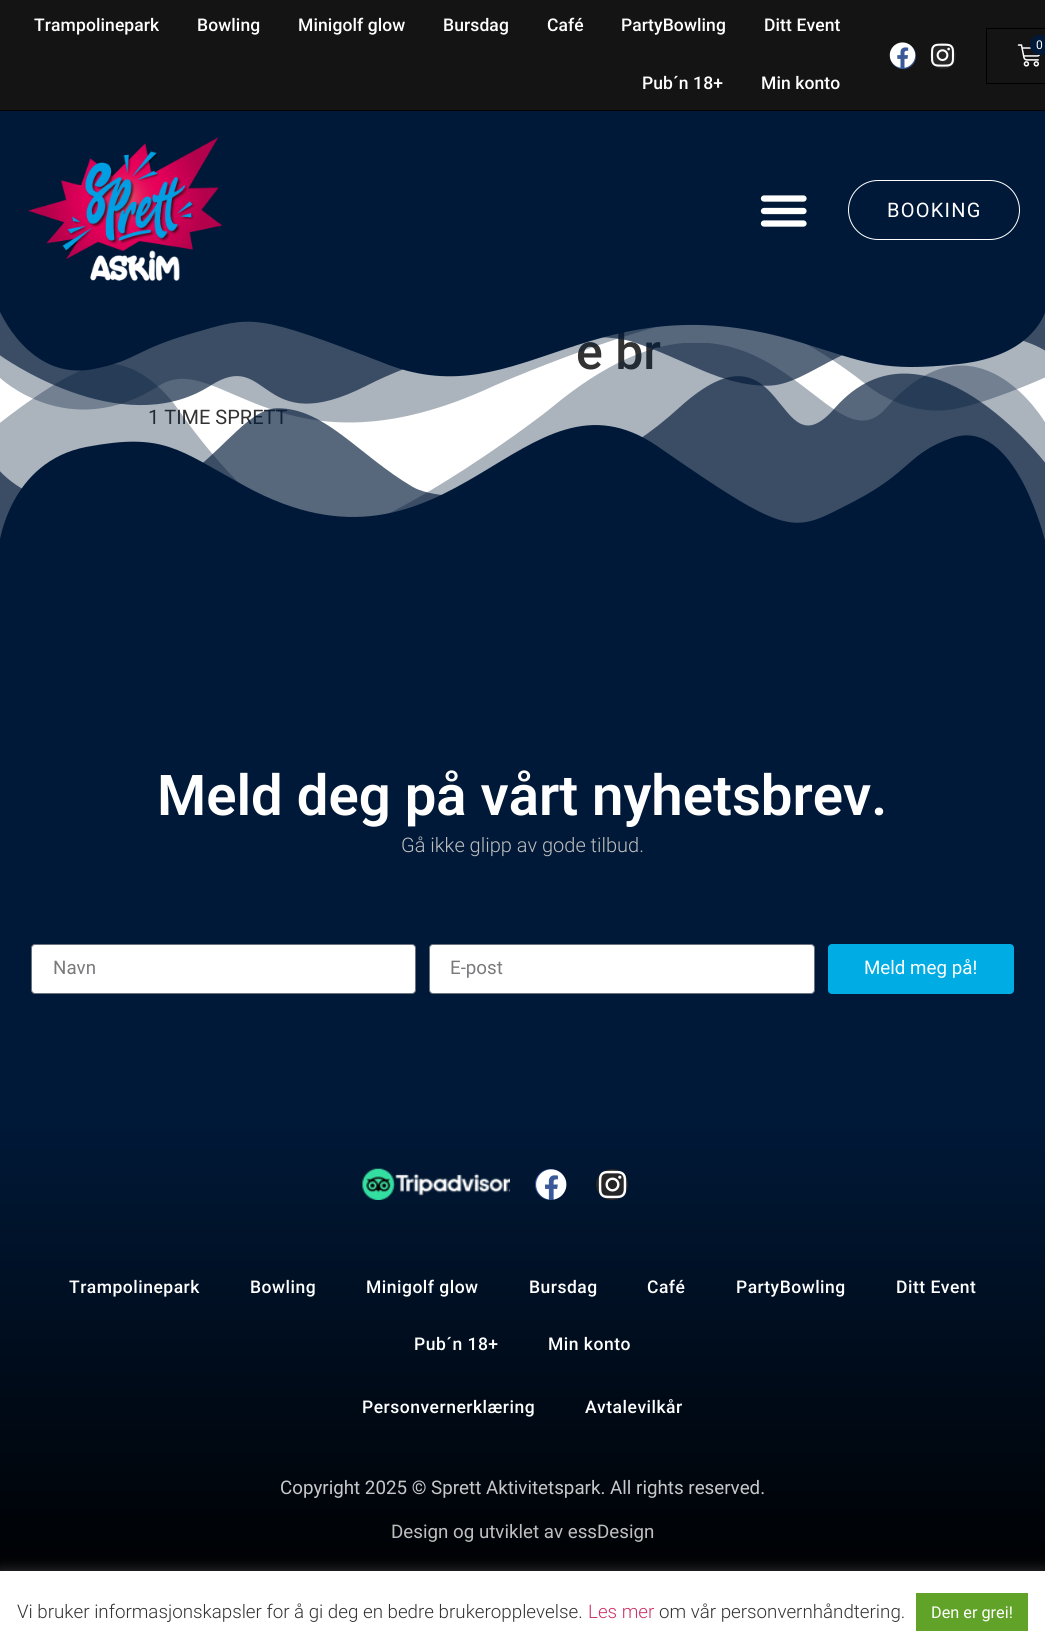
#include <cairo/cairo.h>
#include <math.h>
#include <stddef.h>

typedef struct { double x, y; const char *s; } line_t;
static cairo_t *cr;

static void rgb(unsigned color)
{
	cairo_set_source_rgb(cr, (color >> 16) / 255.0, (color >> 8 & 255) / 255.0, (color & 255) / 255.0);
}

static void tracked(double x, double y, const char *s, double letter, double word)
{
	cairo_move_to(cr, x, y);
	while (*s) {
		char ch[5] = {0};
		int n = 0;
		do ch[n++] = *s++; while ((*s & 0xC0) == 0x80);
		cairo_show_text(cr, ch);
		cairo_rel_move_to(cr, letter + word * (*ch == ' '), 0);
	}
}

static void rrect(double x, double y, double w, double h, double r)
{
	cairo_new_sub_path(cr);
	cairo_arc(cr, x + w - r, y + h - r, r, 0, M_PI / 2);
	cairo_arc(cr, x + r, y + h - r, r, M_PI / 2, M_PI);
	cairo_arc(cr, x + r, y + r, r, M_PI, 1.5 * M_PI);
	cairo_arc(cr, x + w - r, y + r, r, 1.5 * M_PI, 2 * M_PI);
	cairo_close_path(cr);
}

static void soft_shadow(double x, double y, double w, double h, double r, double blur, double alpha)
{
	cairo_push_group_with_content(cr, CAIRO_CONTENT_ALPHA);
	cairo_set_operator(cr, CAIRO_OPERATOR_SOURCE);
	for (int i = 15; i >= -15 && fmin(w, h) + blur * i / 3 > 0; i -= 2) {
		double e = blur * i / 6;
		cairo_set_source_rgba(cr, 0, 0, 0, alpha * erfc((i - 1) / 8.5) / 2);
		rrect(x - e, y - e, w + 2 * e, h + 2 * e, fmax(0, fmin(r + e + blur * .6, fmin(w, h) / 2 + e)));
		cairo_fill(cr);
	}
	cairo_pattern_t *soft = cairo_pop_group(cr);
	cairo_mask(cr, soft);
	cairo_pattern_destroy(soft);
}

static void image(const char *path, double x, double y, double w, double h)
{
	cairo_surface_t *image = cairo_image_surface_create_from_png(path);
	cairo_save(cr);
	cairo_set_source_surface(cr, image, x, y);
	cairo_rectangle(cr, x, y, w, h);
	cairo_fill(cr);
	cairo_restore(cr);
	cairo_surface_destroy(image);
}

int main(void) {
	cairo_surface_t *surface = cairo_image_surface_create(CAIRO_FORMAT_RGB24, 1045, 1646);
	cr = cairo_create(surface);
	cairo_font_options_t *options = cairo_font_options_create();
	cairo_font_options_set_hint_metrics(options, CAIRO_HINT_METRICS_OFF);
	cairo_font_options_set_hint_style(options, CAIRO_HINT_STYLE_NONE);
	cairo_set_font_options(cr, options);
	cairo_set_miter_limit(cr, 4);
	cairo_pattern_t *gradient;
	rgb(0xffffff);
	cairo_paint(cr);
	rgb(0x141414);
	cairo_rectangle(cr, 0, 0, 1045, 110);
	cairo_fill(cr);
	rgb(0x3b5998);
	cairo_arc(cr, 903, 56, 13, 0, 2 * M_PI);
	cairo_fill(cr);
	image("img/1.png", 889, 42, 27, 26);
	rgb(0x262626);
	cairo_arc(cr, 943, 56, 13, 0, 2 * M_PI);
	cairo_fill(cr);
	image("img/2.png", 931, 43, 24, 24);
	cairo_rectangle(cr, 986.5, 28.5, 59, 55);
	rgb(0x000000);
	cairo_set_line_width(cr, 1);
	cairo_stroke(cr);
	image("img/3.png", 1017, 44, 24, 23);
	rgb(0x001938);
	cairo_arc(cr, 1040, 45, 10, 0, 2 * M_PI);
	cairo_fill(cr);
	cairo_rectangle(cr, 0, 111, 1045, 200);
	cairo_fill(cr);
	rgb(0x000204);
	cairo_rectangle(cr, 0, 110, 1045, 1);
	cairo_fill(cr);
	image("img/4.png", 28, 137, 195, 144);
	image("img/5.png", 760, 195, 47, 32);
	rrect(848.5, 180.5, 171, 59, 29.5);
	rgb(0xffffff);
	cairo_stroke(cr);
	rgb(0x001938);
	cairo_rectangle(cr, 0, 543, 1045, 576);
	cairo_fill(cr);
	rgb(0xffffff);
	rrect(31.5, 944.5, 384, 49, 3.5);
	cairo_fill_preserve(cr);
	rgb(0x69727d);
	cairo_stroke(cr);
	rgb(0xffffff);
	rrect(429.5, 944.5, 385, 49, 3.5);
	cairo_fill_preserve(cr);
	rgb(0x69727d);
	cairo_stroke(cr);
	rgb(0x00ace4);
	rrect(828, 944, 186, 50, 4);
	cairo_fill(cr);
	gradient = cairo_pattern_create_linear(523, 1119, 523, 1596);
	cairo_pattern_add_color_stop_rgba(gradient, 0, 0, 0.098, 0.22, 1);
	cairo_pattern_add_color_stop_rgba(gradient, 1, 0, 0, 0, 1);
	cairo_set_source(cr, gradient);
	cairo_pattern_destroy(gradient);
	cairo_rectangle(cr, 0, 1119, 1045, 452);
	cairo_fill(cr);
	image("img/8.png", 362, 1168, 148, 32);
	rgb(0x3b5998);
	cairo_arc(cr, 550.5, 1184.5, 15.5, 0, 2 * M_PI);
	cairo_fill(cr);
	image("img/9.png", 536, 1169, 31, 31);
	rgb(0x262626);
	rrect(596, 1169, 32, 31, 15.5);
	cairo_fill(cr);
	image("img/10.png", 598, 1170, 29, 29);
	rgb(0xacabab);
	soft_shadow(0, 1570, 1045, 75, 0, 6, 0.3);
	rgb(0xffffff);
	cairo_rectangle(cr, 0, 1571, 1045, 75);
	cairo_fill(cr);
	rgb(0x61a229);
	cairo_rectangle(cr, 916, 1593, 112, 38);
	cairo_fill(cr);
	cairo_select_font_face(cr, "Roboto Medium", CAIRO_FONT_SLANT_NORMAL, CAIRO_FONT_WEIGHT_NORMAL);
	cairo_set_font_size(cr, 17.5);
	rgb(0xffffff);
	{
		static const line_t items[] = {
			{34, 31, "Trampolinepark"},
			{197, 31, "Bowling"},
			{298, 31, "Minigolf glow"},
			{443, 31, "Bursdag"},
			{547, 31, "Café"},
			{621, 31, "PartyBowling"},
			{764, 31, "Ditt Event"},
			{642, 89, "Pub´n 18+"},
			{761, 89, "Min konto"},
		};
		for (size_t i = 0; i < sizeof items / sizeof *items; i++) {
			tracked(items[i].x, items[i].y, items[i].s, 0.1, 0);
		}
	}
	cairo_select_font_face(cr, "Roboto", CAIRO_FONT_SLANT_NORMAL, CAIRO_FONT_WEIGHT_NORMAL);
	cairo_set_font_size(cr, 12);
	cairo_move_to(cr, 1036, 49);
	cairo_show_text(cr, "0");
	cairo_set_font_size(cr, 20);
	tracked(887, 217, "BOOKING", 1.25, 0);
	cairo_select_font_face(cr, "Roboto Medium", CAIRO_FONT_SLANT_NORMAL, CAIRO_FONT_WEIGHT_NORMAL);
	cairo_set_font_size(cr, 50);
	rgb(0x333333);
	cairo_move_to(cr, 576, 369);
	cairo_show_text(cr, "e br");
	cairo_select_font_face(cr, "Roboto", CAIRO_FONT_SLANT_NORMAL, CAIRO_FONT_WEIGHT_NORMAL);
	cairo_set_font_size(cr, 20);
	cairo_move_to(cr, 148, 424);
	cairo_show_text(cr, "1 TIME SPRETT");
	image("img/6.png", 0, 311, 1045, 112);
	image("img/7.png", 0, 343, 1045, 200);
	cairo_select_font_face(cr, "Roboto SemiBold", CAIRO_FONT_SLANT_NORMAL, CAIRO_FONT_WEIGHT_NORMAL);
	cairo_set_font_size(cr, 56.25);
	rgb(0xffffff);
	cairo_move_to(cr, 157, 815);
	cairo_show_text(cr, "Meld deg på vårt nyhetsbrev.");
	cairo_select_font_face(cr, "Roboto Light", CAIRO_FONT_SLANT_NORMAL, CAIRO_FONT_WEIGHT_NORMAL);
	cairo_set_font_size(cr, 20);
	rgb(0xbfbfbf);
	cairo_move_to(cr, 401, 852);
	cairo_show_text(cr, "Gå ikke glipp av gode tilbud.");
	cairo_select_font_face(cr, "Roboto", CAIRO_FONT_SLANT_NORMAL, CAIRO_FONT_WEIGHT_NORMAL);
	cairo_set_font_size(cr, 18.75);
	rgb(0x797a7c);
	cairo_move_to(cr, 53, 974);
	cairo_show_text(cr, "Navn");
	cairo_move_to(cr, 450, 974);
	cairo_show_text(cr, "E-post");
	rgb(0xffffff);
	cairo_move_to(cr, 864, 974);
	cairo_show_text(cr, "Meld meg på!");
	cairo_select_font_face(cr, "Roboto Medium", CAIRO_FONT_SLANT_NORMAL, CAIRO_FONT_WEIGHT_NORMAL);
	cairo_set_font_size(cr, 17.5);
	{
		static const line_t items[] = {
			{69, 1293, "Trampolinepark"},
			{250, 1293, "Bowling"},
			{366, 1293, "Minigolf glow"},
			{529, 1293, "Bursdag"},
			{647, 1293, "Café"},
			{736, 1293, "PartyBowling"},
			{896, 1293, "Ditt Event"},
			{414, 1350, "Pub´n 18+"},
			{548, 1350, "Min konto"},
			{362, 1413, "Personvernerklæring"},
			{585, 1413, "Avtalevilkår"},
		};
		for (size_t i = 0; i < sizeof items / sizeof *items; i++) {
			tracked(items[i].x, items[i].y, items[i].s, 0.5, 0);
		}
	}
	cairo_select_font_face(cr, "Roboto", CAIRO_FONT_SLANT_NORMAL, CAIRO_FONT_WEIGHT_NORMAL);
	cairo_set_font_size(cr, 18.75);
	rgb(0xc7c8ca);
	cairo_move_to(cr, 280, 1494);
	cairo_show_text(cr, "Copyright 2025 © Sprett Aktivitetspark. All rights reserved.");
	rgb(0xbfbfbf);
	cairo_move_to(cr, 391, 1538);
	cairo_show_text(cr, "Design og utviklet av essDesign");
	cairo_select_font_face(cr, "Roboto Light", CAIRO_FONT_SLANT_NORMAL, CAIRO_FONT_WEIGHT_NORMAL);
	rgb(0x333333);
	cairo_move_to(cr, 17, 1618);
	cairo_show_text(cr, "Vi bruker informasjonskapsler for å gi deg en bedre brukeropplevelse.");
	rgb(0xcc3366);
	cairo_move_to(cr, 588, 1618);
	cairo_show_text(cr, "Les mer");
	rgb(0x333333);
	cairo_move_to(cr, 659, 1618);
	cairo_show_text(cr, "om vår personvernhåndtering.");
	cairo_select_font_face(cr, "Roboto", CAIRO_FONT_SLANT_NORMAL, CAIRO_FONT_WEIGHT_NORMAL);
	cairo_set_font_size(cr, 16.25);
	rgb(0xffffff);
	cairo_move_to(cr, 931, 1618);
	cairo_show_text(cr, "Den er grei!");
	cairo_surface_write_to_png(surface, "page.png");
	cairo_font_options_destroy(options);
	cairo_destroy(cr);
	cairo_surface_destroy(surface);
	return 0;
}
